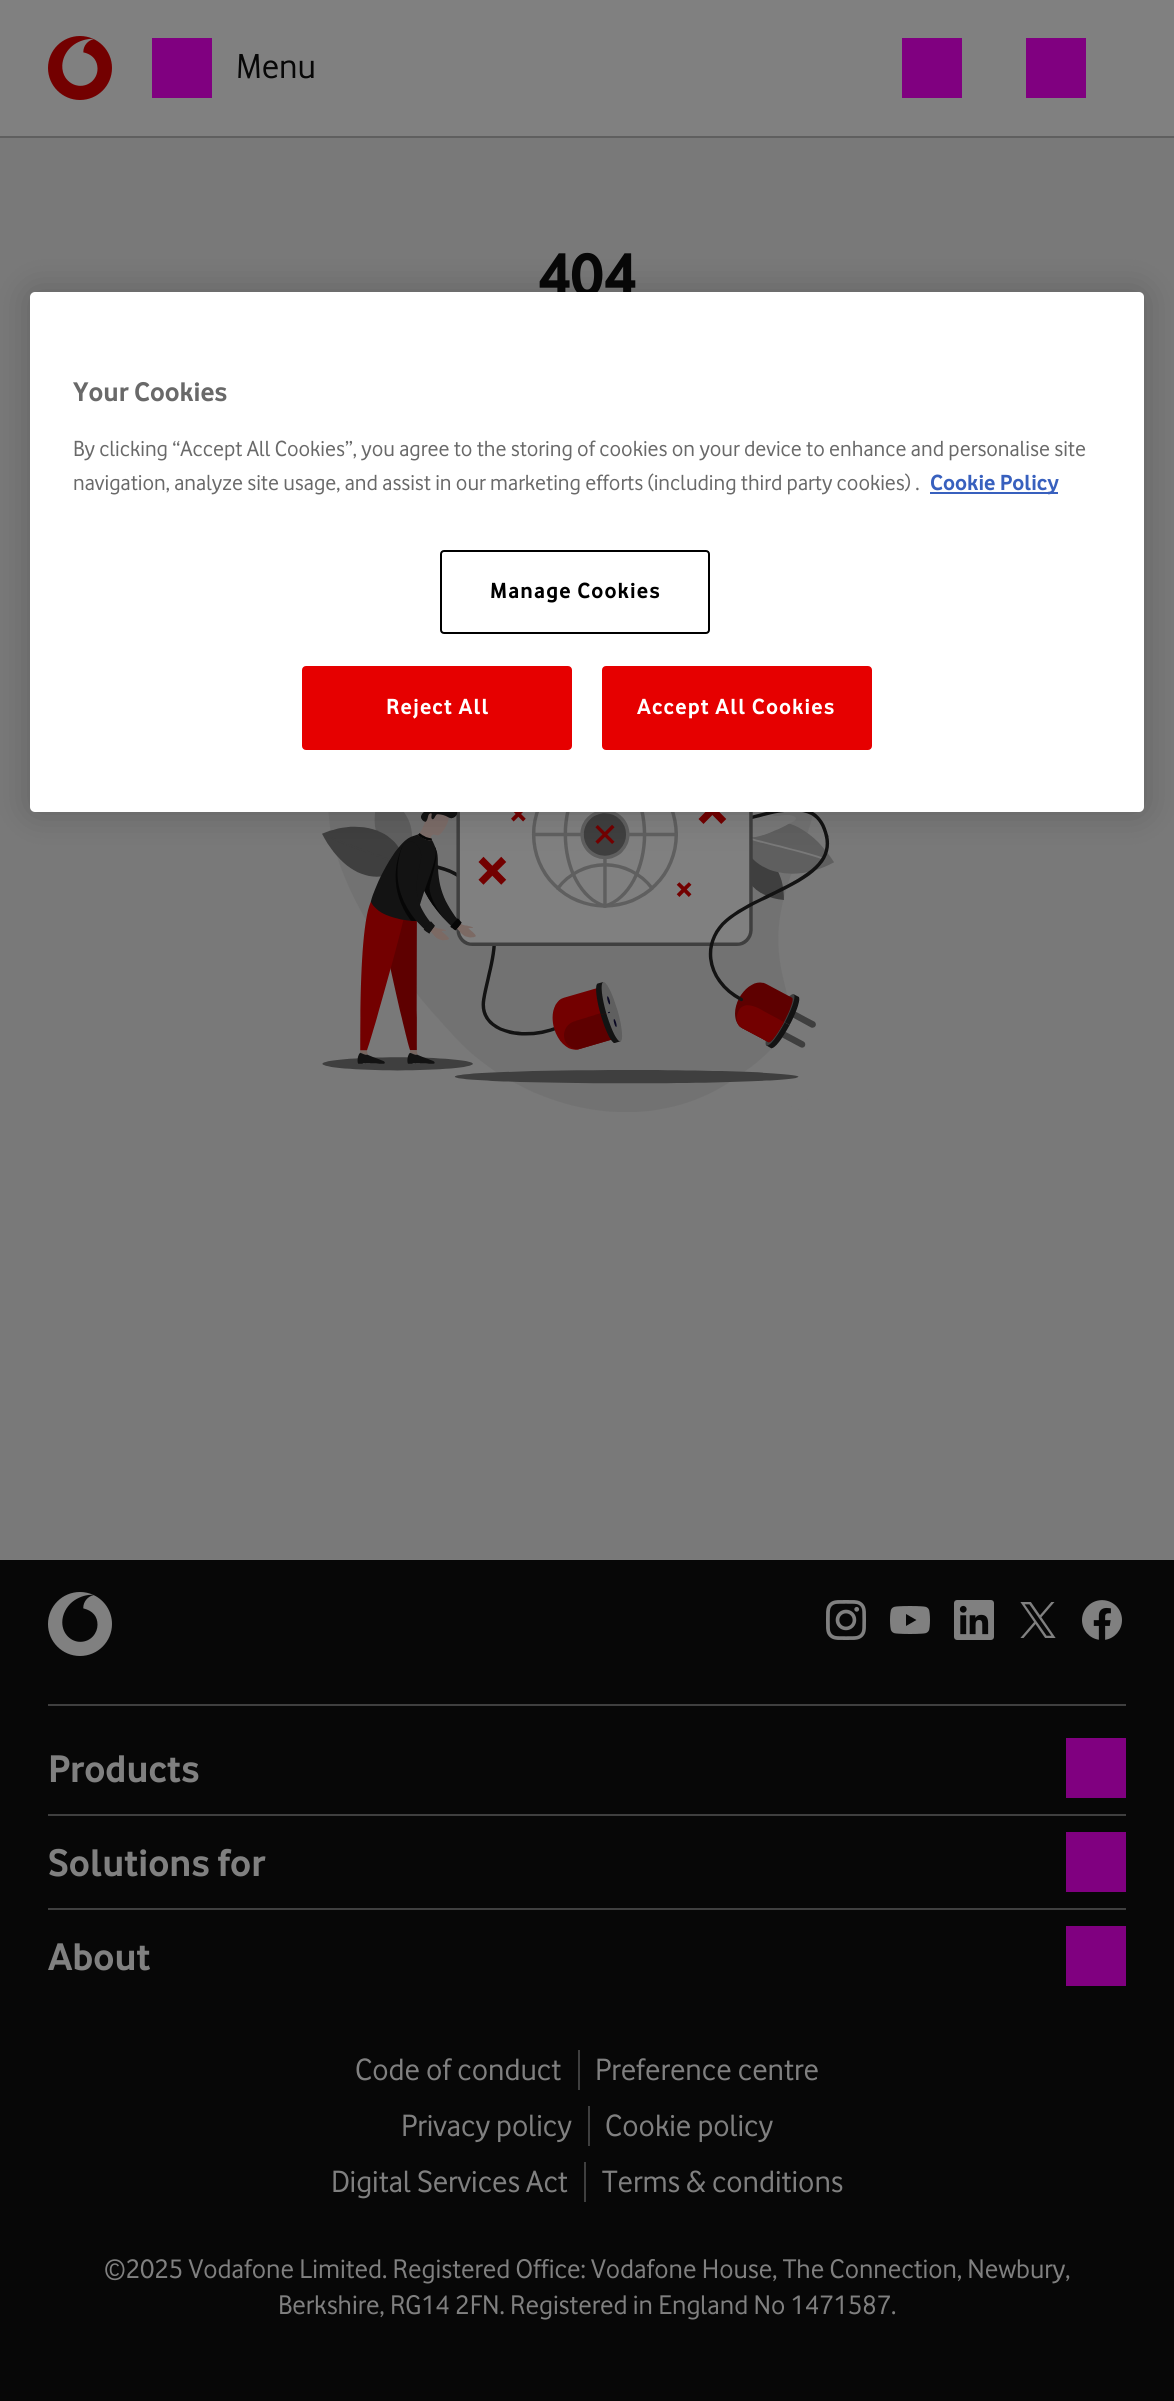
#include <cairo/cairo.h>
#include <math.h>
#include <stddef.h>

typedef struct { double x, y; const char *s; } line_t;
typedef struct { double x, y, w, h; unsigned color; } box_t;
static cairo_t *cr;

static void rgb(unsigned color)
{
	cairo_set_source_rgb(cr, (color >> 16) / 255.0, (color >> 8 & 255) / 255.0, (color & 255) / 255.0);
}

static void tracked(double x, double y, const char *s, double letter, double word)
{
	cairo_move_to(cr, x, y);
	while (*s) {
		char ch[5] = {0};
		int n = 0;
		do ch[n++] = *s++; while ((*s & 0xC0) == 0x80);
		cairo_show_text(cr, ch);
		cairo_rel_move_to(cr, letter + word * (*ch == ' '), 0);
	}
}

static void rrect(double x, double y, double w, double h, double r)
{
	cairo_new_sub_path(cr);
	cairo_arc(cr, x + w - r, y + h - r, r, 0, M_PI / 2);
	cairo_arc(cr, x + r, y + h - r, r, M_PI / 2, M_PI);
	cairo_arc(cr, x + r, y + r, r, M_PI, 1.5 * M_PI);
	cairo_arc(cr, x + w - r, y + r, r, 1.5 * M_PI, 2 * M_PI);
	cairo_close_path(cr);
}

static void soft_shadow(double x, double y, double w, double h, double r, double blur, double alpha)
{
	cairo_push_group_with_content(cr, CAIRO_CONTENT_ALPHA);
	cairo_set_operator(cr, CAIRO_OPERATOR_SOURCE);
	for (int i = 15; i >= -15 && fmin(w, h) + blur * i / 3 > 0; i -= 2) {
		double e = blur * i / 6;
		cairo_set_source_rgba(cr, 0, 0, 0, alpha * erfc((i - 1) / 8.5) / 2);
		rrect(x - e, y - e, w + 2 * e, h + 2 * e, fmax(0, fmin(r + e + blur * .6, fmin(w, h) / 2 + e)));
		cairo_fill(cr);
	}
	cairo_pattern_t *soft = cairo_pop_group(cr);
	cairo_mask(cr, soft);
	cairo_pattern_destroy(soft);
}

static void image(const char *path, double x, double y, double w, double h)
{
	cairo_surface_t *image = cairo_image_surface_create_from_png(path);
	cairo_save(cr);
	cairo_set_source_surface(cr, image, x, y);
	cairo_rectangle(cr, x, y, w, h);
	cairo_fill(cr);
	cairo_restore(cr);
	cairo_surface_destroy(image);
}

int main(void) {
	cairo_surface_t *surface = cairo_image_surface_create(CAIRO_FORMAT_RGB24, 1174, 2401);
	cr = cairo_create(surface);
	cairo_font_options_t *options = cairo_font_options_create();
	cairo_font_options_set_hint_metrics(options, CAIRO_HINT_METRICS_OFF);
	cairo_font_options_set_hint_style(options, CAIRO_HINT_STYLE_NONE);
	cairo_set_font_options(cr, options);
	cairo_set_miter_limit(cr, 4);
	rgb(0x797979);
	cairo_paint(cr);
	rgb(0x808080);
	cairo_rectangle(cr, 0, 0, 1174, 136);
	cairo_fill(cr);
	rgb(0x5f5f5f);
	cairo_rectangle(cr, 0, 136, 1174, 2);
	cairo_fill(cr);
	image("img/1.png", 48, 36, 64, 64);
	{
		static const box_t items[] = {
			{152, 38, 60, 60, 0x800080},
			{902, 38, 60, 60, 0x800080},
			{1026, 38, 60, 60, 0x800080},
		};
		for (size_t i = 0; i < sizeof items / sizeof *items; i++) {
			rgb(items[i].color);
			cairo_rectangle(cr, items[i].x, items[i].y, items[i].w, items[i].h);
			cairo_fill(cr);
		}
	}
	image("img/2.png", 322, 812, 512, 300);
	rgb(0x070707);
	cairo_rectangle(cr, 0, 1560, 1174, 841);
	cairo_fill(cr);
	image("img/3.png", 48, 1592, 64, 64);
	image("img/4.png", 826, 1600, 40, 40);
	image("img/5.png", 890, 1606, 40, 28);
	image("img/6.png", 954, 1600, 40, 40);
	image("img/7.png", 1020, 1602, 36, 36);
	image("img/8.png", 1082, 1600, 40, 40);
	{
		static const box_t items[] = {
			{48, 1704, 1078, 2, 0x3f3f3f},
			{1066, 1738, 60, 60, 0x800080},
			{48, 1814, 1078, 2, 0x3f3f3f},
			{1066, 1832, 60, 60, 0x800080},
			{48, 1908, 1078, 2, 0x3f3f3f},
			{1066, 1926, 60, 60, 0x800080},
			{578, 2050, 2, 40, 0x3f3f3f},
			{588, 2106, 2, 40, 0x3f3f3f},
			{584, 2162, 2, 40, 0x3f3f3f},
		};
		for (size_t i = 0; i < sizeof items / sizeof *items; i++) {
			rgb(items[i].color);
			cairo_rectangle(cr, items[i].x, items[i].y, items[i].w, items[i].h);
			cairo_fill(cr);
		}
	}
	rgb(0x000000);
	soft_shadow(30, 292, 1114, 520, 5, 18, 0.2);
	cairo_select_font_face(cr, "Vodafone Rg", CAIRO_FONT_SLANT_NORMAL, CAIRO_FONT_WEIGHT_NORMAL);
	cairo_set_font_size(cr, 36);
	rgb(0x070707);
	cairo_move_to(cr, 236, 78);
	cairo_show_text(cr, "Menu");
	cairo_select_font_face(cr, "Vodafone Rg", CAIRO_FONT_SLANT_NORMAL, CAIRO_FONT_WEIGHT_BOLD);
	cairo_set_font_size(cr, 64);
	cairo_move_to(cr, 538, 296);
	cairo_show_text(cr, "404");
	cairo_set_font_size(cr, 40);
	rgb(0x808080);
	{
		static const line_t items[] = {
			{48, 1782, "Products"},
			{48, 1876, "Solutions for"},
			{48, 1970, "About"},
		};
		for (size_t i = 0; i < sizeof items / sizeof *items; i++) {
			cairo_move_to(cr, items[i].x, items[i].y);
			cairo_show_text(cr, items[i].s);
		}
	}
	cairo_select_font_face(cr, "Vodafone Rg", CAIRO_FONT_SLANT_NORMAL, CAIRO_FONT_WEIGHT_NORMAL);
	cairo_set_font_size(cr, 32);
	{
		static const line_t items[] = {
			{355, 2080, "Code of conduct"},
			{595, 2080, "Preference centre"},
			{401, 2136, "Privacy policy"},
			{605, 2136, "Cookie policy"},
			{331, 2192, "Digital Services Act"},
			{602, 2192, "Terms & conditions"},
		};
		for (size_t i = 0; i < sizeof items / sizeof *items; i++) {
			cairo_move_to(cr, items[i].x, items[i].y);
			cairo_show_text(cr, items[i].s);
		}
	}
	cairo_set_font_size(cr, 28);
	cairo_move_to(cr, 104, 2278);
	cairo_show_text(cr, "©2025 Vodafone Limited. Registered Office: Vodafone House, The Connection, Newbury,");
	cairo_move_to(cr, 278, 2314);
	cairo_show_text(cr, "Berkshire, RG14 2FN. Registered in England No 1471587.");
	rgb(0xffffff);
	rrect(30, 292, 1114, 520, 5);
	cairo_fill(cr);
	cairo_select_font_face(cr, "Vodafone Rg", CAIRO_FONT_SLANT_NORMAL, CAIRO_FONT_WEIGHT_BOLD);
	rgb(0x696969);
	cairo_move_to(cr, 73, 401);
	cairo_show_text(cr, "Your Cookies");
	cairo_select_font_face(cr, "Vodafone Rg", CAIRO_FONT_SLANT_NORMAL, CAIRO_FONT_WEIGHT_NORMAL);
	cairo_set_font_size(cr, 22.75);
	cairo_move_to(cr, 73, 456);
	cairo_show_text(cr, "By clicking “Accept All Cookies”, you agree to the storing of cookies on your device to enhance and personalise site");
	cairo_move_to(cr, 73, 490);
	cairo_show_text(cr, "navigation, analyze site usage, and assist in our marketing efforts (including third party cookies) .");
	rgb(0x3860be);
	cairo_rectangle(cr, 930, 492, 128, 2);
	cairo_fill(cr);
	cairo_select_font_face(cr, "Vodafone Rg", CAIRO_FONT_SLANT_NORMAL, CAIRO_FONT_WEIGHT_BOLD);
	cairo_move_to(cr, 930, 490);
	cairo_show_text(cr, "Cookie Policy");
	rrect(441, 551, 268, 82, 3);
	rgb(0x000000);
	cairo_stroke(cr);
	tracked(490, 598, "Manage Cookies", 1.1, 0);
	rgb(0xe60000);
	rrect(303, 667, 268, 82, 3);
	cairo_fill_preserve(cr);
	cairo_stroke(cr);
	rgb(0xffffff);
	tracked(386, 714, "Reject All", 1.1, 0);
	rgb(0xe60000);
	rrect(603, 667, 268, 82, 3);
	cairo_fill_preserve(cr);
	cairo_stroke(cr);
	rgb(0xffffff);
	tracked(637, 714, "Accept All Cookies", 1.1, 0);
	cairo_surface_write_to_png(surface, "page.png");
	cairo_font_options_destroy(options);
	cairo_destroy(cr);
	cairo_surface_destroy(surface);
	return 0;
}
